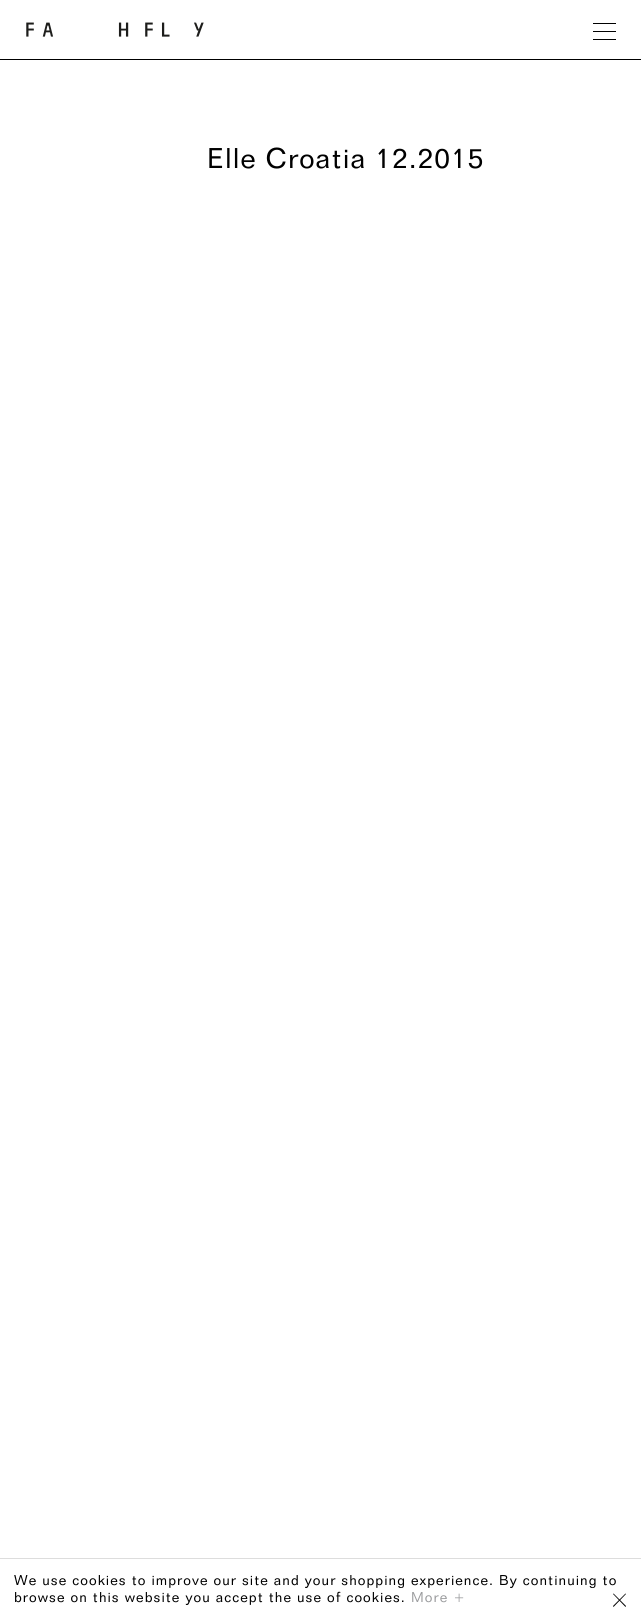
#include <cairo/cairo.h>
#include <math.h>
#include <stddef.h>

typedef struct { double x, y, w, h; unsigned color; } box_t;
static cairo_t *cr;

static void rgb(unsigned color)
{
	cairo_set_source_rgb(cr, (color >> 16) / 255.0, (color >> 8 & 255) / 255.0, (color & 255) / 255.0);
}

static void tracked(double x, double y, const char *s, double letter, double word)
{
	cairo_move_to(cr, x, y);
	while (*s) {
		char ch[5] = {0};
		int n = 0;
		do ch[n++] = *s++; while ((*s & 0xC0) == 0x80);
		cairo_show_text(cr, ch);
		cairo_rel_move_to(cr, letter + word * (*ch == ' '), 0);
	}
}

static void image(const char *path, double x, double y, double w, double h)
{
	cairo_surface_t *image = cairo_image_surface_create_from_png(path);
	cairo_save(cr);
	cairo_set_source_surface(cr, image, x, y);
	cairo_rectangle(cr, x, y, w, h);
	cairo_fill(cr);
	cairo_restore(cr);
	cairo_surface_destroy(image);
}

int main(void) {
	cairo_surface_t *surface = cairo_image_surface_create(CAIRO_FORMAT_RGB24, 641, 1621);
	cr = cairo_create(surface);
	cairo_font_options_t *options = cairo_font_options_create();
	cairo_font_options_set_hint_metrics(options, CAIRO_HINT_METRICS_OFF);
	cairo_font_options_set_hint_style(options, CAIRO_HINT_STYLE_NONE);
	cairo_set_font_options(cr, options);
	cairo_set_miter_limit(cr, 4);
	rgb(0xffffff);
	cairo_paint(cr);
	rgb(0x000000);
	cairo_rectangle(cr, 0, 59, 641, 1);
	cairo_fill(cr);
	image("img/1.png", 26, 22, 178, 15);
	{
		static const box_t items[] = {
			{593, 23, 23, 1, 0x000000},
			{593, 31, 23, 1, 0x000000},
			{593, 39, 23, 1, 0x000000},
			{0, 1558, 641, 1, 0xdddddd},
		};
		for (size_t i = 0; i < sizeof items / sizeof *items; i++) {
			rgb(items[i].color);
			cairo_rectangle(cr, items[i].x, items[i].y, items[i].w, items[i].h);
			cairo_fill(cr);
		}
	}
	rgb(0x000000);
	cairo_new_path(cr);
	cairo_move_to(cr, 625.5, 1593.5);
	cairo_line_to(cr, 626, 1594);
	cairo_line_to(cr, 613.5, 1607);
	cairo_line_to(cr, 613, 1606);
	cairo_close_path(cr);
	cairo_fill(cr);
	cairo_new_path(cr);
	cairo_move_to(cr, 613, 1594);
	cairo_line_to(cr, 613.5, 1593.5);
	cairo_line_to(cr, 626, 1606);
	cairo_line_to(cr, 625.5, 1607);
	cairo_close_path(cr);
	cairo_fill(cr);
	cairo_select_font_face(cr, "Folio", CAIRO_FONT_SLANT_NORMAL, CAIRO_FONT_WEIGHT_NORMAL);
	cairo_set_font_size(cr, 28);
	tracked(207, 168, "Elle Croatia 12.2015", 1.05, 0);
	cairo_set_font_size(cr, 14);
	tracked(14, 1585, "We use cookies to improve our site and your shopping experience. By continuing to", 1.05, 0);
	tracked(14, 1602, "browse on this website you accept the use of cookies.", 1.05, 0);
	rgb(0x9b9c9e);
	tracked(411, 1602, "More +", 1.05, 0);
	cairo_surface_write_to_png(surface, "page.png");
	cairo_font_options_destroy(options);
	cairo_destroy(cr);
	cairo_surface_destroy(surface);
	return 0;
}
